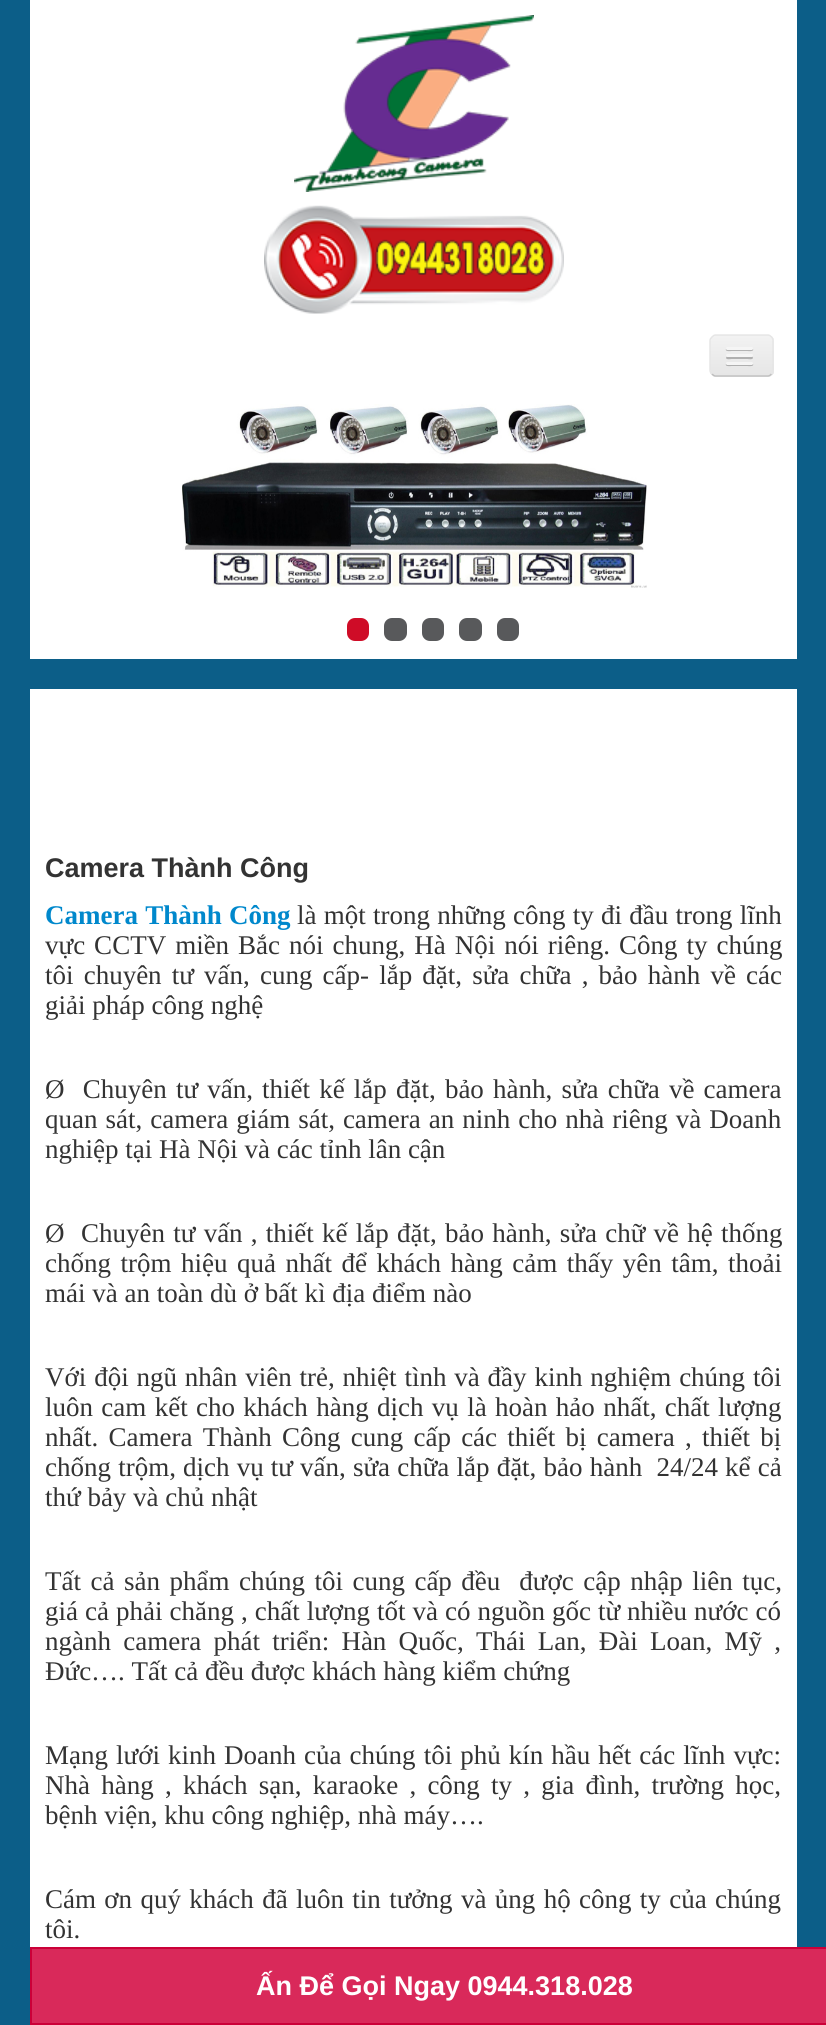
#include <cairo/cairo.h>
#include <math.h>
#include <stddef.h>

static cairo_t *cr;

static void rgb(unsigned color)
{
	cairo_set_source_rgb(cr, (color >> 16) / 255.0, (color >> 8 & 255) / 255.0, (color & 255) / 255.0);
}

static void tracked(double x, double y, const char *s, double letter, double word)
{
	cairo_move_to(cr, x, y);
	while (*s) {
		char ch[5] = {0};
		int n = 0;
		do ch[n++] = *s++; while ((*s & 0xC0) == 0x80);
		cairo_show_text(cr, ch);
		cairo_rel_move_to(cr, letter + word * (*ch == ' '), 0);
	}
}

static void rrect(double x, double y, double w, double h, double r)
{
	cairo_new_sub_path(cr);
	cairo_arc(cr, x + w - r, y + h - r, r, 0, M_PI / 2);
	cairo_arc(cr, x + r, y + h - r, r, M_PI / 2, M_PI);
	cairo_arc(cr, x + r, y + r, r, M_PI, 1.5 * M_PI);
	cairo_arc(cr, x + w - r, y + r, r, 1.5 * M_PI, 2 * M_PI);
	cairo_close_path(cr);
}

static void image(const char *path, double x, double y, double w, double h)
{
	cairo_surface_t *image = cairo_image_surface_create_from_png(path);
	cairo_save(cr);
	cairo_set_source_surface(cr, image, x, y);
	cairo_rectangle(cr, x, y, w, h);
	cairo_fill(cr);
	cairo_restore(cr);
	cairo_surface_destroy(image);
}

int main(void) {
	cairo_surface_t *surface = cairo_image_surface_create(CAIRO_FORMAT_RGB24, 826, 2025);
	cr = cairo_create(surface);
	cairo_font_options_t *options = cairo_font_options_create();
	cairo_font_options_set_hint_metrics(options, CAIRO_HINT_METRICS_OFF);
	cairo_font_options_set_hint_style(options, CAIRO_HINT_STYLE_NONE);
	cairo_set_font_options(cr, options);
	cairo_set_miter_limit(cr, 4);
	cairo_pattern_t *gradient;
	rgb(0x0c5e88);
	cairo_paint(cr);
	rgb(0xffffff);
	cairo_rectangle(cr, 30, 0, 767, 659);
	cairo_fill(cr);
	image("img/1.png", 294, 15, 240, 177);
	image("img/2.png", 264, 205, 300, 109);
	rgb(0xededed);
	rrect(710, 335, 64, 42, 6);
	cairo_fill(cr);
	cairo_save(cr);
	rrect(710, 335, 64, 42, 6);
	cairo_clip(cr);
	gradient = cairo_pattern_create_linear(742, 336, 742, 375);
	cairo_pattern_add_color_stop_rgba(gradient, 0, 0.949, 0.949, 0.949, 1);
	cairo_pattern_add_color_stop_rgba(gradient, 1, 0.902, 0.902, 0.902, 1);
	cairo_set_source(cr, gradient);
	cairo_pattern_destroy(gradient);
	cairo_rectangle(cr, 710, 336, 64, 39);
	cairo_fill(cr);
	cairo_restore(cr);
	cairo_new_path(cr);
	cairo_move_to(cr, 771.5, 374);
	cairo_curve_to(cr, 770.5, 375, 769.5, 376, 768, 376);
	cairo_line_to(cr, 715.5, 376);
	cairo_curve_to(cr, 714, 376, 713, 375, 712, 374);
	rgb(0xbfbfbf);
	cairo_set_line_width(cr, 1.5);
	cairo_stroke(cr);
	cairo_new_path(cr);
	cairo_move_to(cr, 712, 374);
	cairo_curve_to(cr, 711, 373, 710, 372, 710, 370.5);
	cairo_line_to(cr, 710, 340.5);
	cairo_curve_to(cr, 710, 339, 711, 338, 712, 337);
	cairo_curve_to(cr, 713, 336, 714, 335, 715.5, 335);
	cairo_line_to(cr, 768, 335);
	cairo_curve_to(cr, 769.5, 335, 770.5, 336, 771.5, 337);
	cairo_curve_to(cr, 772.5, 338, 773, 339, 773, 340.5);
	cairo_line_to(cr, 773, 370.5);
	cairo_curve_to(cr, 773, 372, 772.5, 373, 771.5, 374);
	rgb(0xe6e6e6);
	cairo_stroke(cr);
	rgb(0xb3b3b3);
	cairo_new_path(cr);
	cairo_move_to(cr, 726, 349);
	cairo_curve_to(cr, 724.5, 352, 731.5, 351, 731.5, 351);
	cairo_line_to(cr, 747.5, 351);
	cairo_curve_to(cr, 747.5, 351, 754.5, 352, 753, 349);
	cairo_curve_to(cr, 752.5, 349, 752, 349.5, 751.5, 349.5);
	cairo_line_to(cr, 727.5, 349.5);
	cairo_curve_to(cr, 727, 349.5, 726.5, 349, 726, 349);
	cairo_close_path(cr);
	cairo_fill(cr);
	rgb(0xf5f5f5);
	rrect(726, 347, 27, 3, 1.5);
	cairo_fill(cr);
	rgb(0xb0b0b0);
	cairo_new_path(cr);
	cairo_move_to(cr, 726.5, 356.5);
	cairo_line_to(cr, 726, 358);
	cairo_curve_to(cr, 726.5, 360, 731, 359, 731.5, 359);
	cairo_line_to(cr, 747.5, 359);
	cairo_curve_to(cr, 748, 359, 752.5, 360, 753, 358);
	cairo_line_to(cr, 752.5, 356.5);
	cairo_line_to(cr, 751.5, 357);
	cairo_line_to(cr, 727.5, 357);
	cairo_close_path(cr);
	cairo_fill(cr);
	rgb(0xf5f5f5);
	rrect(726, 354, 27, 3, 1.5);
	cairo_fill(cr);
	rgb(0xafafaf);
	cairo_new_path(cr);
	cairo_move_to(cr, 726, 364);
	cairo_curve_to(cr, 724.5, 367, 731.5, 366, 731.5, 366);
	cairo_line_to(cr, 747.5, 366);
	cairo_curve_to(cr, 747.5, 366, 754.5, 367, 753, 364);
	cairo_curve_to(cr, 752.5, 364, 752, 364.5, 751.5, 364.5);
	cairo_line_to(cr, 727.5, 364.5);
	cairo_curve_to(cr, 727, 364.5, 726.5, 364, 726, 364);
	cairo_close_path(cr);
	cairo_fill(cr);
	rgb(0xf5f5f5);
	rrect(726, 362, 27, 3, 1.5);
	cairo_fill(cr);
	image("img/3.png", 182, 404, 465, 184);
	rgb(0xcf0c27);
	rrect(347, 618, 22, 23, 8);
	cairo_fill(cr);
	rgb(0x58595b);
	rrect(384, 618, 23, 23, 8);
	cairo_fill(cr);
	rrect(422, 618, 22, 23, 8);
	cairo_fill(cr);
	rrect(459, 618, 23, 23, 8);
	cairo_fill(cr);
	rrect(497, 618, 22, 23, 8);
	cairo_fill(cr);
	rgb(0xffffff);
	cairo_rectangle(cr, 30, 689, 767, 1258);
	cairo_fill(cr);
	rgb(0xd9295a);
	cairo_rectangle(cr, 31, 1948, 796, 76);
	cairo_fill_preserve(cr);
	rgb(0xcb0038);
	cairo_set_line_width(cr, 2);
	cairo_stroke(cr);
	cairo_select_font_face(cr, "Liberation Sans", CAIRO_FONT_SLANT_NORMAL, CAIRO_FONT_WEIGHT_BOLD);
	cairo_set_font_size(cr, 27);
	rgb(0x333333);
	cairo_move_to(cr, 45, 877);
	cairo_show_text(cr, "Camera Thành Công");
	cairo_select_font_face(cr, "Liberation Serif", CAIRO_FONT_SLANT_NORMAL, CAIRO_FONT_WEIGHT_BOLD);
	rgb(0x0088cc);
	tracked(45, 924, "Camera Thành Công", 0, 0.5);
	cairo_select_font_face(cr, "Liberation Serif", CAIRO_FONT_SLANT_NORMAL, CAIRO_FONT_WEIGHT_NORMAL);
	rgb(0x333333);
	tracked(297, 924, "là một trong những công ty đi đầu trong lĩnh", 0, 0.5);
	tracked(45, 954, "vực CCTV miền Bắc nói chung, Hà Nội nói riêng. Công ty chúng", 0, 2.25);
	tracked(45, 984, "tôi chuyên tư vấn, cung cấp- lắp đặt, sửa chữa , bảo hành về các", 0, 3.4);
	cairo_move_to(cr, 45, 1014);
	cairo_show_text(cr, "giải pháp công nghệ");
	tracked(45, 1098, "Ø  Chuyên tư vấn, thiết kế lắp đặt, bảo hành, sửa chữa về camera", 0, 2.4);
	tracked(45, 1128, "quan sát, camera giám sát, camera an ninh cho nhà riêng và Doanh", 0, 1.25);
	cairo_move_to(cr, 45, 1158);
	cairo_show_text(cr, "nghiệp tại Hà Nội và các tỉnh lân cận");
	tracked(45, 1242, "Ø  Chuyên tư vấn , thiết kế lắp đặt, bảo hành, sửa chữ về hệ thống", 0, 1.5);
	tracked(45, 1272, "chống trộm hiệu quả nhất để khách hàng cảm thấy yên tâm, thoải", 0, 2.75);
	cairo_move_to(cr, 45, 1302);
	cairo_show_text(cr, "mái và an toàn dù ở bất kì địa điểm nào");
	tracked(45, 1386, "Với đội ngũ nhân viên trẻ, nhiệt tình và đầy kinh nghiệm chúng tôi", 0, 1.1);
	tracked(45, 1416, "luôn cam kết cho khách hàng dịch vụ là hoàn hảo nhất, chất lượng", 0, 1.6);
	tracked(45, 1446, "nhất. Camera Thành Công cung cấp các thiết bị camera , thiết bị", 0, 3.5);
	tracked(45, 1476, "chống trộm, dịch vụ tư vấn, sửa chữa lắp đặt, bảo hành  24/24 kể cả", 0, 0.4);
	cairo_move_to(cr, 45, 1506);
	cairo_show_text(cr, "thứ bảy và chủ nhật");
	tracked(45, 1590, "Tất cả sản phẩm chúng tôi cung cấp đều  được cập nhập liên tục,", 0, 2.75);
	tracked(45, 1620, "giá cả phải chăng , chất lượng tốt và có nguồn gốc từ nhiều nước có", 0, 0.25);
	tracked(45, 1650, "ngành camera phát triển: Hàn Quốc, Thái Lan, Đài Loan, Mỹ ,", 0, 5.5);
	cairo_move_to(cr, 45, 1680);
	cairo_show_text(cr, "Đức…. Tất cả đều được khách hàng kiểm chứng");
	tracked(45, 1764, "Mạng lưới kinh Doanh của chúng tôi phủ kín hầu hết các lĩnh vực:", 0, 1.3);
	tracked(45, 1794, "Nhà hàng , khách sạn, karaoke , công ty , gia đình, trường học,", 0, 4.5);
	cairo_move_to(cr, 45, 1824);
	cairo_show_text(cr, "bệnh viện, khu công nghiệp, nhà máy….");
	tracked(45, 1908, "Cám ơn quý khách đã luôn tin tưởng và ủng hộ công ty của chúng", 0, 1.6);
	cairo_move_to(cr, 45, 1938);
	cairo_show_text(cr, "tôi.");
	cairo_select_font_face(cr, "Liberation Sans", CAIRO_FONT_SLANT_NORMAL, CAIRO_FONT_WEIGHT_BOLD);
	rgb(0xffffff);
	cairo_move_to(cr, 256, 1995);
	cairo_show_text(cr, "Ấn Để Gọi Ngay 0944.318.028");
	cairo_surface_write_to_png(surface, "page.png");
	cairo_font_options_destroy(options);
	cairo_destroy(cr);
	cairo_surface_destroy(surface);
	return 0;
}
